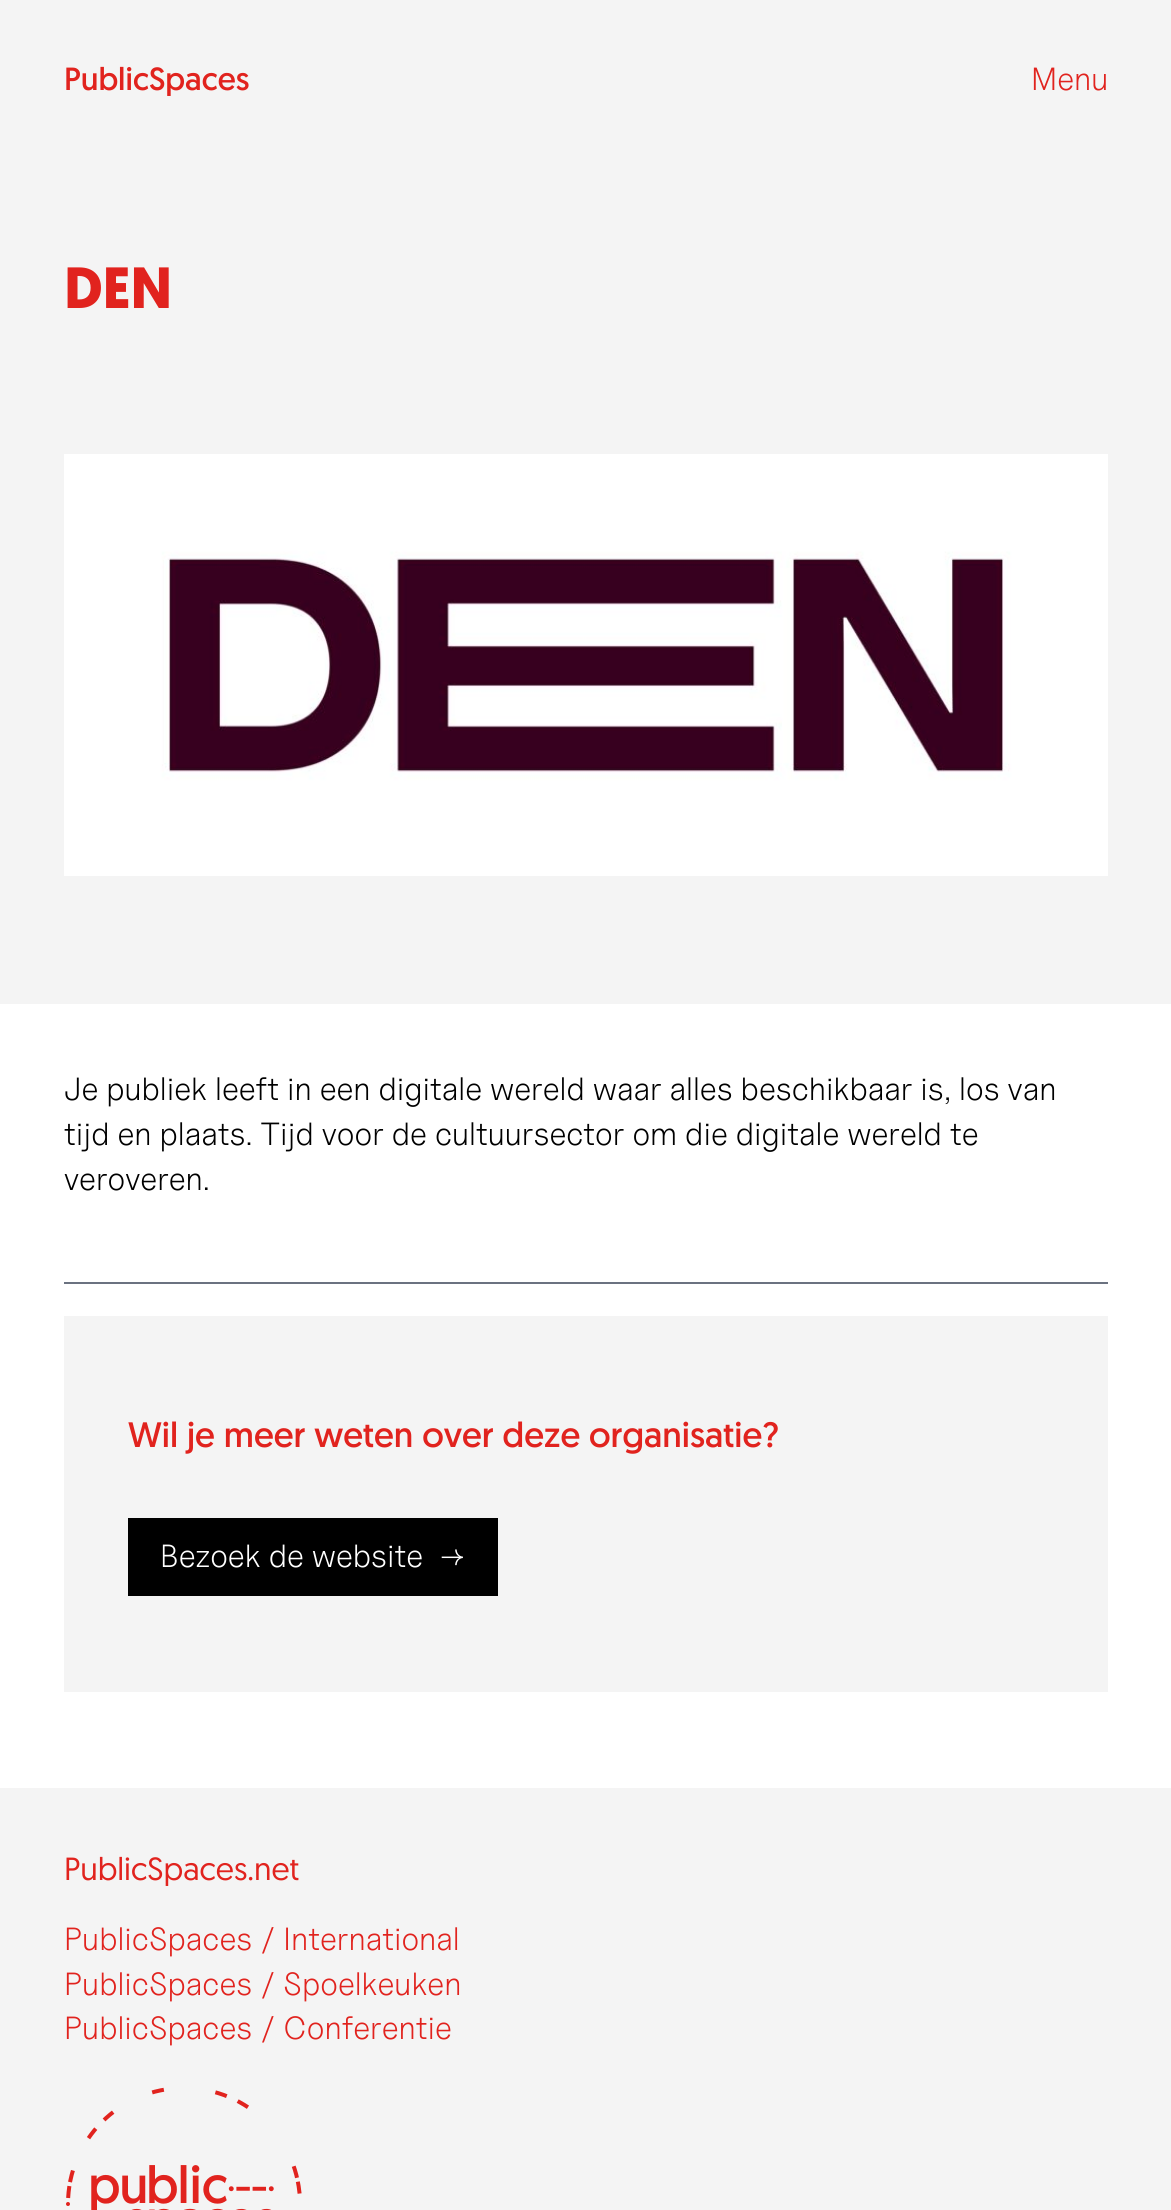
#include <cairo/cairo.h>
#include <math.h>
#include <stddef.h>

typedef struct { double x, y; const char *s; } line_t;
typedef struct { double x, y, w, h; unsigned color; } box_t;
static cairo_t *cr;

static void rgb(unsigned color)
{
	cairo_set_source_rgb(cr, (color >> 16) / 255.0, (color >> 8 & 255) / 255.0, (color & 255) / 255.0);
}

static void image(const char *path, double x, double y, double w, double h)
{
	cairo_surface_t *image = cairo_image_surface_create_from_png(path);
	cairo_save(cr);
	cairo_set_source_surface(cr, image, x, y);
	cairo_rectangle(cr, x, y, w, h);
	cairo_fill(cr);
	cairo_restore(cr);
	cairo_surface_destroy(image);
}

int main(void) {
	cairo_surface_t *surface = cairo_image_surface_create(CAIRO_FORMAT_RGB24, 1171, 2210);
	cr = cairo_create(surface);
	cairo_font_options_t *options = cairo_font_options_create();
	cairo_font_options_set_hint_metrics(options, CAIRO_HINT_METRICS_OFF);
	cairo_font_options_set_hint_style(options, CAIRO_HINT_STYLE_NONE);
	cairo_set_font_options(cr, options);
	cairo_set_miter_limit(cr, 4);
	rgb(0xf4f4f4);
	cairo_paint(cr);
	rgb(0xffffff);
	cairo_rectangle(cr, 0, 1004, 1171, 784);
	cairo_fill(cr);
	image("img/1.png", 64, 454, 1044, 422);
	{
		static const box_t items[] = {
			{64, 1282, 1044, 2, 0x6b7280},
			{64, 1316, 1044, 376, 0xf4f4f4},
			{128, 1518, 370, 78, 0x000000},
		};
		for (size_t i = 0; i < sizeof items / sizeof *items; i++) {
			rgb(items[i].color);
			cairo_rectangle(cr, items[i].x, items[i].y, items[i].w, items[i].h);
			cairo_fill(cr);
		}
	}
	image("img/2.png", 66, 2087, 236, 123);
	cairo_select_font_face(cr, "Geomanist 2", CAIRO_FONT_SLANT_NORMAL, CAIRO_FONT_WEIGHT_NORMAL);
	cairo_set_font_size(cr, 32);
	rgb(0xe1231e);
	cairo_move_to(cr, 64, 90);
	cairo_show_text(cr, "PublicSpaces");
	cairo_select_font_face(cr, "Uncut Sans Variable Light", CAIRO_FONT_SLANT_NORMAL, CAIRO_FONT_WEIGHT_NORMAL);
	cairo_move_to(cr, 1031, 90);
	cairo_show_text(cr, "Menu");
	cairo_select_font_face(cr, "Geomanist", CAIRO_FONT_SLANT_NORMAL, CAIRO_FONT_WEIGHT_BOLD);
	cairo_set_font_size(cr, 58);
	cairo_move_to(cr, 64, 308);
	cairo_show_text(cr, "DEN");
	cairo_select_font_face(cr, "Uncut Sans Variable Light", CAIRO_FONT_SLANT_NORMAL, CAIRO_FONT_WEIGHT_NORMAL);
	cairo_set_font_size(cr, 32);
	rgb(0x000000);
	{
		static const line_t items[] = {
			{64, 1100, "Je publiek leeft in een digitale wereld waar alles beschikbaar is, los van"},
			{64, 1145, "tijd en plaats. Tijd voor de cultuursector om die digitale wereld te"},
			{64, 1190, "veroveren."},
		};
		for (size_t i = 0; i < sizeof items / sizeof *items; i++) {
			cairo_move_to(cr, items[i].x, items[i].y);
			cairo_show_text(cr, items[i].s);
		}
	}
	cairo_select_font_face(cr, "Geomanist 2", CAIRO_FONT_SLANT_NORMAL, CAIRO_FONT_WEIGHT_NORMAL);
	cairo_set_font_size(cr, 35.25);
	rgb(0xe1231e);
	cairo_move_to(cr, 128, 1447);
	cairo_show_text(cr, "Wil je meer weten over deze organisatie?");
	cairo_select_font_face(cr, "Uncut Sans Variable Light", CAIRO_FONT_SLANT_NORMAL, CAIRO_FONT_WEIGHT_NORMAL);
	cairo_set_font_size(cr, 32);
	rgb(0xffffff);
	cairo_move_to(cr, 160, 1567);
	cairo_show_text(cr, "Bezoek de website");
	cairo_move_to(cr, 439, 1567);
	cairo_show_text(cr, "→");
	cairo_select_font_face(cr, "Geomanist", CAIRO_FONT_SLANT_NORMAL, CAIRO_FONT_WEIGHT_NORMAL);
	rgb(0xe1231e);
	cairo_move_to(cr, 64, 1880);
	cairo_show_text(cr, "PublicSpaces.net");
	cairo_select_font_face(cr, "Uncut Sans Variable Light", CAIRO_FONT_SLANT_NORMAL, CAIRO_FONT_WEIGHT_NORMAL);
	{
		static const line_t items[] = {
			{64, 1950, "PublicSpaces / International"},
			{64, 1995, "PublicSpaces / Spoelkeuken"},
			{64, 2039, "PublicSpaces / Conferentie"},
		};
		for (size_t i = 0; i < sizeof items / sizeof *items; i++) {
			cairo_move_to(cr, items[i].x, items[i].y);
			cairo_show_text(cr, items[i].s);
		}
	}
	cairo_surface_write_to_png(surface, "page.png");
	cairo_font_options_destroy(options);
	cairo_destroy(cr);
	cairo_surface_destroy(surface);
	return 0;
}
